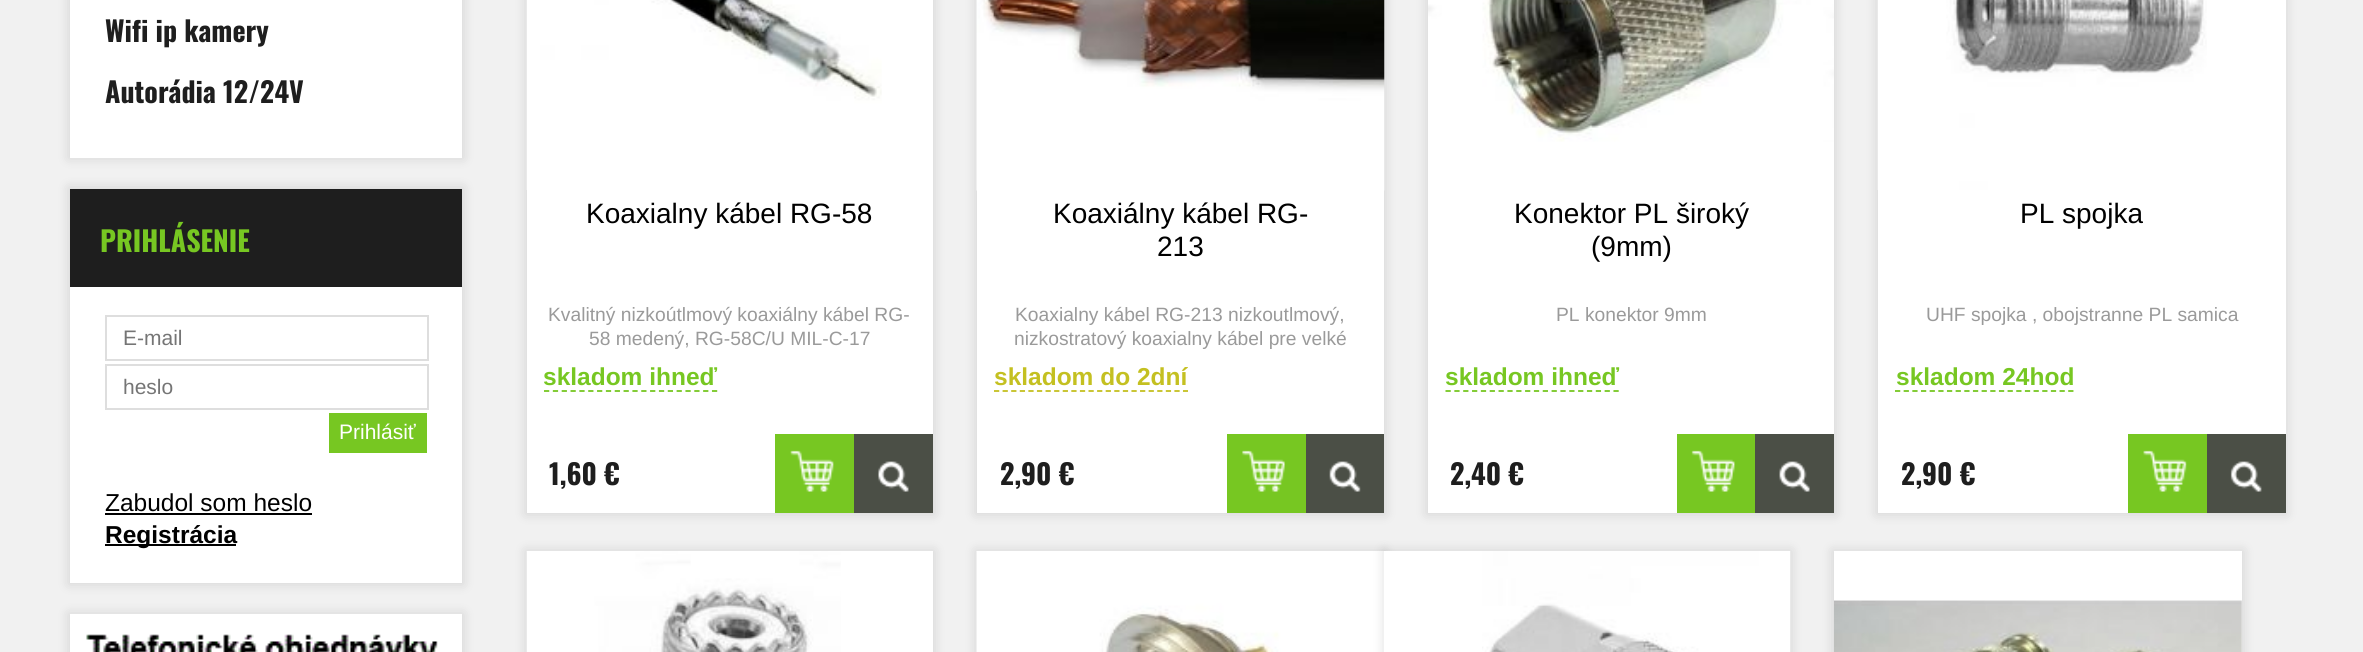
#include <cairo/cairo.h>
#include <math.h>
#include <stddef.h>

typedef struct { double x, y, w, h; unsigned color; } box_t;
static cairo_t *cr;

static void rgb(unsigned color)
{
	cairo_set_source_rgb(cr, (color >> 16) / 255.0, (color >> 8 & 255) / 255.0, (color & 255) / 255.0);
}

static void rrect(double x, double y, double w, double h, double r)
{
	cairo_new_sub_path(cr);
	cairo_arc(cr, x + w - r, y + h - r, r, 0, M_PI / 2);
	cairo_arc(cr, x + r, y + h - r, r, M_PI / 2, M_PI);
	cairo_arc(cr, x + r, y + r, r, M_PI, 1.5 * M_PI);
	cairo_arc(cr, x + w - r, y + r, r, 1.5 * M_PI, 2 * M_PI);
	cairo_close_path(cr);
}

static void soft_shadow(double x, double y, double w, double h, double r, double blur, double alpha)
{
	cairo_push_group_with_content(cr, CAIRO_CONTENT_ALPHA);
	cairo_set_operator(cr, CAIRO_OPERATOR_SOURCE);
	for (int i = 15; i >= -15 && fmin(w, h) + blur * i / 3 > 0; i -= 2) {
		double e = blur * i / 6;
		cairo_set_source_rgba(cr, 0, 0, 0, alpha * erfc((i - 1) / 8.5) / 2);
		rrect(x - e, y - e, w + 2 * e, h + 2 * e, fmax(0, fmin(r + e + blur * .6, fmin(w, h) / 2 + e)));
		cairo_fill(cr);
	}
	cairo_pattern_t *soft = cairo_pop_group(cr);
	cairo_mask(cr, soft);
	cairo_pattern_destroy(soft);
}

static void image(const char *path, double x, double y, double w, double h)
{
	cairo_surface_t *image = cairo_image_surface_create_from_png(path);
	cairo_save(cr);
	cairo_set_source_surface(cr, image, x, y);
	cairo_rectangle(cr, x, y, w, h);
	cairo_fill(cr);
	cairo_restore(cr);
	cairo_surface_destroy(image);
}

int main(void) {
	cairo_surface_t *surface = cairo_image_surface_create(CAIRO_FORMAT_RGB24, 2363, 652);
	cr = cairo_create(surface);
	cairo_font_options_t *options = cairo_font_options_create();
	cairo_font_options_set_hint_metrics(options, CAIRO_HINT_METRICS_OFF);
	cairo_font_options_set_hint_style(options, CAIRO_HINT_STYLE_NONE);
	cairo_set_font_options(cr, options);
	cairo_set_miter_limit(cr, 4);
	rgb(0xf1f1f1);
	cairo_paint(cr);
	rgb(0x040505);
	soft_shadow(68, -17, 396, 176, 0, 5.5, 0.11);
	rgb(0xffffff);
	cairo_rectangle(cr, 70, 0, 392, 158);
	cairo_fill(cr);
	rgb(0x040505);
	soft_shadow(68, 187, 396, 398, 0, 5.5, 0.11);
	rgb(0xffffff);
	cairo_rectangle(cr, 70, 287, 392, 296);
	cairo_fill(cr);
	rgb(0x1e1e1e);
	cairo_rectangle(cr, 70, 189, 392, 98);
	cairo_fill(cr);
	cairo_rectangle(cr, 106, 316, 322, 44);
	rgb(0xdedede);
	cairo_stroke(cr);
	cairo_rectangle(cr, 106, 365, 322, 44);
	cairo_stroke(cr);
	{
		static const box_t items[] = {
			{329, 413, 98, 40, 0x77c722},
			{105, 513, 207, 2, 0x000000},
			{105, 544, 131, 2, 0x000000},
		};
		for (size_t i = 0; i < sizeof items / sizeof *items; i++) {
			rgb(items[i].color);
			cairo_rectangle(cr, items[i].x, items[i].y, items[i].w, items[i].h);
			cairo_fill(cr);
		}
	}
	rgb(0x040505);
	soft_shadow(68, 613, 396, 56, 0, 5.5, 0.11);
	image("img/1.png", 70, 614, 392, 38);
	soft_shadow(525, -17, 410, 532, 0, 5.5, 0.11);
	rgb(0xffffff);
	cairo_rectangle(cr, 527, 0, 406, 513);
	cairo_fill(cr);
	image("img/2.png", 526, 0, 356, 190);
	cairo_new_path(cr);
	cairo_move_to(cr, 544, 391);
	cairo_line_to(cr, 717.5, 391);
	rgb(0x77c722);
	cairo_set_line_width(cr, 1.8);
	cairo_set_dash(cr, (double[]){5.25, 3.59}, 2, 0);
	cairo_stroke(cr);
	cairo_rectangle(cr, 775, 434, 79, 79);
	cairo_fill(cr);
	image("img/3.png", 790, 450, 44, 42);
	rgb(0x4b4f46);
	cairo_rectangle(cr, 854, 434, 79, 79);
	cairo_fill(cr);
	image("img/4.png", 878, 461, 31, 31);
	rgb(0x040505);
	soft_shadow(975, -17, 411, 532, 0, 5.5, 0.11);
	rgb(0xffffff);
	cairo_rectangle(cr, 977, 190, 407, 323);
	cairo_fill(cr);
	image("img/5.png", 976, 0, 409, 191);
	cairo_new_path(cr);
	cairo_move_to(cr, 994, 391);
	cairo_line_to(cr, 1188, 391);
	rgb(0xc4c021);
	cairo_set_dash(cr, (double[]){5.25, 3.34}, 2, 0);
	cairo_stroke(cr);
	rgb(0x77c722);
	cairo_rectangle(cr, 1227, 434, 79, 79);
	cairo_fill(cr);
	image("img/6.png", 1242, 450, 43, 42);
	rgb(0x4b4f46);
	cairo_rectangle(cr, 1306, 434, 78, 79);
	cairo_fill(cr);
	image("img/7.png", 1329, 461, 32, 31);
	rgb(0x040505);
	soft_shadow(1426, -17, 410, 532, 0, 5.5, 0.11);
	rgb(0xffffff);
	cairo_rectangle(cr, 1428, 142, 406, 371);
	cairo_fill(cr);
	image("img/8.png", 1428, 0, 406, 142);
	cairo_new_path(cr);
	cairo_move_to(cr, 1445.5, 391);
	cairo_line_to(cr, 1619, 391);
	rgb(0x77c722);
	cairo_set_dash(cr, (double[]){5.25, 3.59}, 2, 0);
	cairo_stroke(cr);
	cairo_rectangle(cr, 1677, 434, 78, 79);
	cairo_fill(cr);
	image("img/9.png", 1691, 450, 44, 42);
	rgb(0x4b4f46);
	cairo_rectangle(cr, 1755, 434, 79, 79);
	cairo_fill(cr);
	image("img/10.png", 1779, 461, 31, 31);
	rgb(0x040505);
	soft_shadow(1876, -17, 411, 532, 0, 5.5, 0.11);
	rgb(0xffffff);
	cairo_rectangle(cr, 1878, 0, 408, 513);
	cairo_fill(cr);
	image("img/11.png", 1877, 0, 330, 190);
	cairo_new_path(cr);
	cairo_move_to(cr, 1895, 391);
	cairo_line_to(cr, 2074, 391);
	rgb(0x77c722);
	cairo_set_dash(cr, (double[]){5.25, 3.41}, 2, 0);
	cairo_stroke(cr);
	cairo_rectangle(cr, 2128, 434, 79, 79);
	cairo_fill(cr);
	image("img/12.png", 2143, 450, 44, 42);
	rgb(0x4b4f46);
	cairo_rectangle(cr, 2207, 434, 79, 79);
	cairo_fill(cr);
	image("img/13.png", 2230, 461, 32, 31);
	rgb(0x040505);
	soft_shadow(525, 550, 410, 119, 0, 5.5, 0.11);
	rgb(0xffffff);
	cairo_rectangle(cr, 841, 551, 92, 101);
	cairo_fill(cr);
	image("img/14.png", 526, 551, 315, 101);
	rgb(0x040505);
	soft_shadow(975, 550, 411, 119, 0, 5.5, 0.11);
	image("img/15.png", 976, 551, 408, 101);
	soft_shadow(1383, 550, 409, 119, 0, 5.5, 0.11);
	rgb(0xffffff);
	cairo_rectangle(cr, 1384, 551, 98, 101);
	cairo_fill(cr);
	image("img/16.png", 1482, 551, 309, 101);
	rgb(0x040505);
	soft_shadow(1832, 550, 412, 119, 0, 5.5, 0.11);
	rgb(0xffffff);
	cairo_rectangle(cr, 1834, 551, 408, 101);
	cairo_fill(cr);
	image("img/17.png", 1834, 600, 408, 52);
	cairo_select_font_face(cr, "Oswald", CAIRO_FONT_SLANT_NORMAL, CAIRO_FONT_WEIGHT_BOLD);
	cairo_set_font_size(cr, 28);
	rgb(0x1e1e1e);
	cairo_move_to(cr, 105, 42);
	cairo_show_text(cr, "Wifi ip kamery");
	cairo_move_to(cr, 105, 103);
	cairo_show_text(cr, "Autorádia 12/24V");
	rgb(0x77c722);
	cairo_move_to(cr, 100, 252);
	cairo_show_text(cr, "PRIHLÁSENIE");
	cairo_select_font_face(cr, "Liberation Sans", CAIRO_FONT_SLANT_NORMAL, CAIRO_FONT_WEIGHT_NORMAL);
	cairo_set_font_size(cr, 21);
	rgb(0x757575);
	cairo_move_to(cr, 123, 345);
	cairo_show_text(cr, "E-mail");
	cairo_move_to(cr, 123, 394);
	cairo_show_text(cr, "heslo");
	rgb(0xffffff);
	cairo_move_to(cr, 339, 439);
	cairo_show_text(cr, "Prihlásiť");
	cairo_set_font_size(cr, 24.5);
	rgb(0x000000);
	cairo_move_to(cr, 105, 511);
	cairo_show_text(cr, "Zabudol som heslo");
	cairo_select_font_face(cr, "Liberation Sans", CAIRO_FONT_SLANT_NORMAL, CAIRO_FONT_WEIGHT_BOLD);
	cairo_move_to(cr, 105, 543);
	cairo_show_text(cr, "Registrácia");
	cairo_select_font_face(cr, "Liberation Sans", CAIRO_FONT_SLANT_NORMAL, CAIRO_FONT_WEIGHT_NORMAL);
	cairo_set_font_size(cr, 28);
	cairo_move_to(cr, 586, 223);
	cairo_show_text(cr, "Koaxialny kábel RG-58");
	cairo_set_font_size(cr, 19.25);
	rgb(0x9a9a9a);
	cairo_move_to(cr, 548, 321);
	cairo_show_text(cr, "Kvalitný nizkoútlmový koaxiálny kábel RG-");
	cairo_move_to(cr, 589, 345);
	cairo_show_text(cr, "58 medený, RG-58C/U MIL-C-17");
	cairo_select_font_face(cr, "Liberation Sans", CAIRO_FONT_SLANT_NORMAL, CAIRO_FONT_WEIGHT_BOLD);
	cairo_set_font_size(cr, 24.5);
	rgb(0x77c722);
	cairo_move_to(cr, 543, 385);
	cairo_show_text(cr, "skladom ihneď");
	cairo_select_font_face(cr, "Oswald", CAIRO_FONT_SLANT_NORMAL, CAIRO_FONT_WEIGHT_BOLD);
	cairo_set_font_size(cr, 28);
	rgb(0x1e1e1e);
	cairo_move_to(cr, 549, 485);
	cairo_show_text(cr, "1,60 €");
	cairo_select_font_face(cr, "Liberation Sans", CAIRO_FONT_SLANT_NORMAL, CAIRO_FONT_WEIGHT_NORMAL);
	rgb(0x000000);
	cairo_move_to(cr, 1053, 223);
	cairo_show_text(cr, "Koaxiálny kábel RG-");
	cairo_move_to(cr, 1157, 256);
	cairo_show_text(cr, "213");
	cairo_set_font_size(cr, 19.25);
	rgb(0x9a9a9a);
	cairo_move_to(cr, 1015, 321);
	cairo_show_text(cr, "Koaxialny kábel RG-213 nizkoutlmový,");
	cairo_move_to(cr, 1014, 345);
	cairo_show_text(cr, "nizkostratový koaxialny kábel pre velké");
	cairo_select_font_face(cr, "Liberation Sans", CAIRO_FONT_SLANT_NORMAL, CAIRO_FONT_WEIGHT_BOLD);
	cairo_set_font_size(cr, 24.5);
	rgb(0xc4c021);
	cairo_move_to(cr, 994, 385);
	cairo_show_text(cr, "skladom do 2dní");
	cairo_select_font_face(cr, "Oswald", CAIRO_FONT_SLANT_NORMAL, CAIRO_FONT_WEIGHT_BOLD);
	cairo_set_font_size(cr, 28);
	rgb(0x1e1e1e);
	cairo_move_to(cr, 1000, 485);
	cairo_show_text(cr, "2,90 €");
	cairo_select_font_face(cr, "Liberation Sans", CAIRO_FONT_SLANT_NORMAL, CAIRO_FONT_WEIGHT_NORMAL);
	rgb(0x000000);
	cairo_move_to(cr, 1514, 223);
	cairo_show_text(cr, "Konektor PL široký");
	cairo_move_to(cr, 1591, 256);
	cairo_show_text(cr, "(9mm)");
	cairo_set_font_size(cr, 19.25);
	rgb(0x9a9a9a);
	cairo_move_to(cr, 1556, 321);
	cairo_show_text(cr, "PL konektor 9mm");
	cairo_select_font_face(cr, "Liberation Sans", CAIRO_FONT_SLANT_NORMAL, CAIRO_FONT_WEIGHT_BOLD);
	cairo_set_font_size(cr, 24.5);
	rgb(0x77c722);
	cairo_move_to(cr, 1445, 385);
	cairo_show_text(cr, "skladom ihneď");
	cairo_select_font_face(cr, "Oswald", CAIRO_FONT_SLANT_NORMAL, CAIRO_FONT_WEIGHT_BOLD);
	cairo_set_font_size(cr, 28);
	rgb(0x1e1e1e);
	cairo_move_to(cr, 1450, 485);
	cairo_show_text(cr, "2,40 €");
	cairo_select_font_face(cr, "Liberation Sans", CAIRO_FONT_SLANT_NORMAL, CAIRO_FONT_WEIGHT_NORMAL);
	rgb(0x000000);
	cairo_move_to(cr, 2020, 223);
	cairo_show_text(cr, "PL spojka");
	cairo_set_font_size(cr, 19.25);
	rgb(0x9a9a9a);
	cairo_move_to(cr, 1926, 321);
	cairo_show_text(cr, "UHF spojka , obojstranne PL samica");
	cairo_select_font_face(cr, "Liberation Sans", CAIRO_FONT_SLANT_NORMAL, CAIRO_FONT_WEIGHT_BOLD);
	cairo_set_font_size(cr, 24.5);
	rgb(0x77c722);
	cairo_move_to(cr, 1896, 385);
	cairo_show_text(cr, "skladom 24hod");
	cairo_select_font_face(cr, "Oswald", CAIRO_FONT_SLANT_NORMAL, CAIRO_FONT_WEIGHT_BOLD);
	cairo_set_font_size(cr, 28);
	rgb(0x1e1e1e);
	cairo_move_to(cr, 1901, 485);
	cairo_show_text(cr, "2,90 €");
	cairo_surface_write_to_png(surface, "page.png");
	cairo_font_options_destroy(options);
	cairo_destroy(cr);
	cairo_surface_destroy(surface);
	return 0;
}
